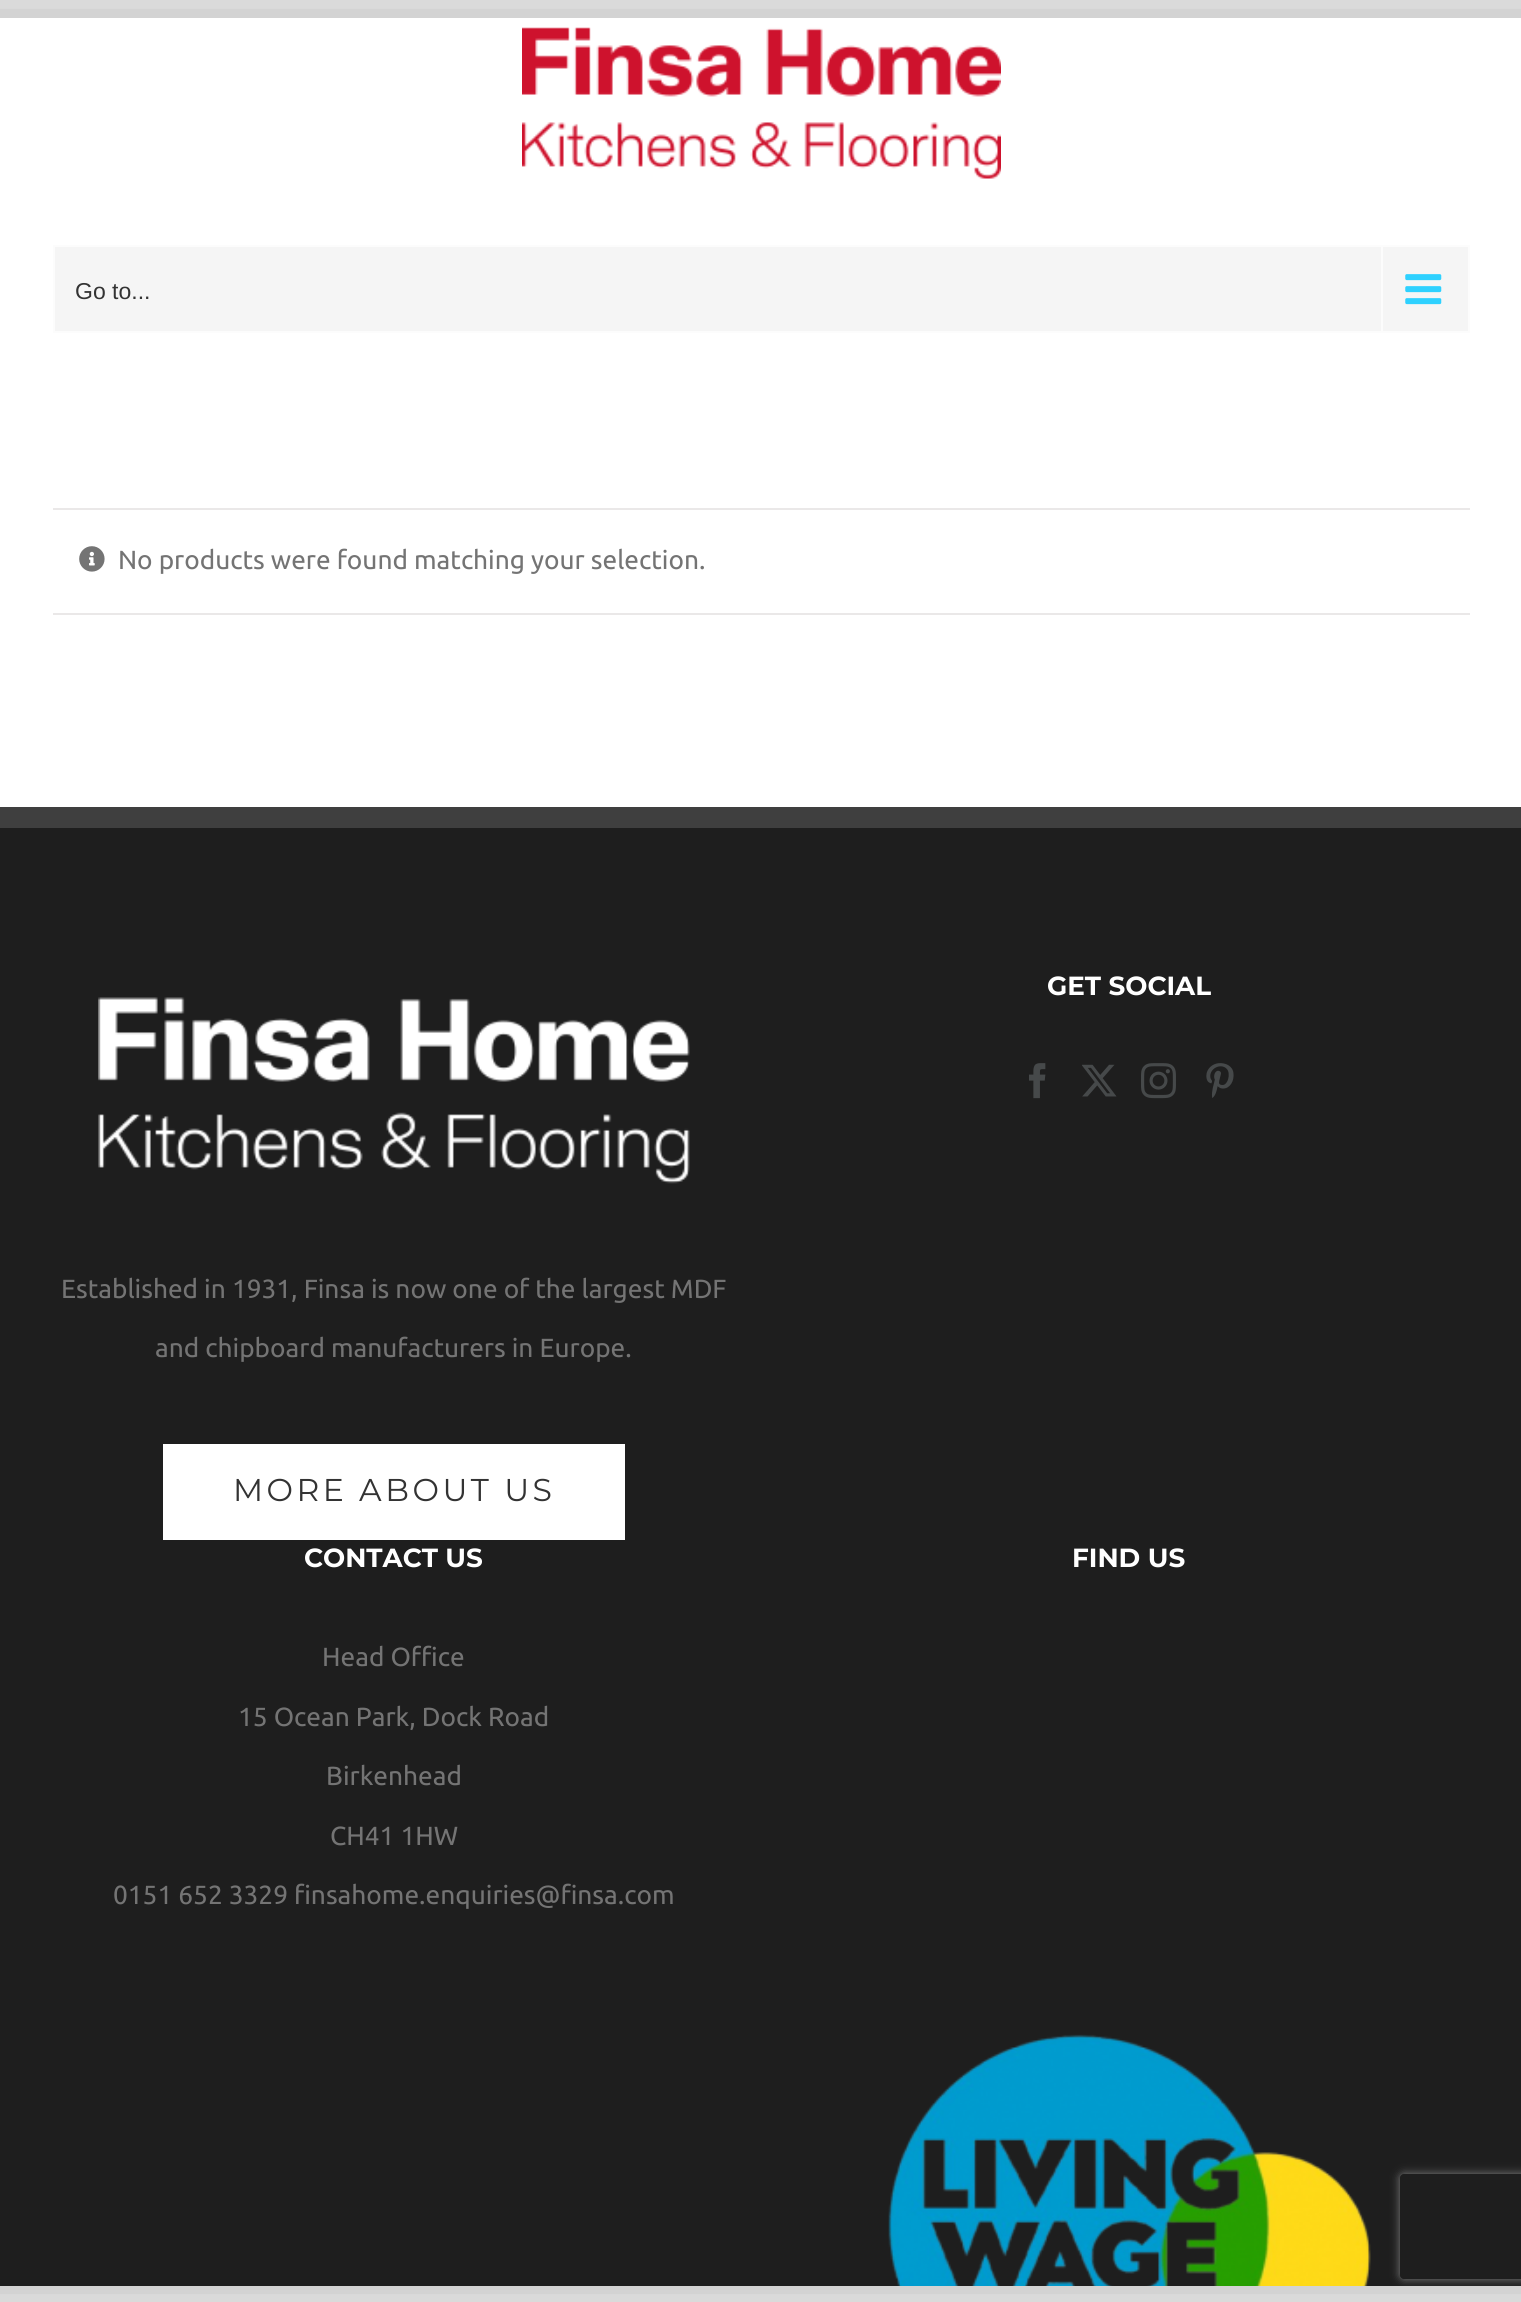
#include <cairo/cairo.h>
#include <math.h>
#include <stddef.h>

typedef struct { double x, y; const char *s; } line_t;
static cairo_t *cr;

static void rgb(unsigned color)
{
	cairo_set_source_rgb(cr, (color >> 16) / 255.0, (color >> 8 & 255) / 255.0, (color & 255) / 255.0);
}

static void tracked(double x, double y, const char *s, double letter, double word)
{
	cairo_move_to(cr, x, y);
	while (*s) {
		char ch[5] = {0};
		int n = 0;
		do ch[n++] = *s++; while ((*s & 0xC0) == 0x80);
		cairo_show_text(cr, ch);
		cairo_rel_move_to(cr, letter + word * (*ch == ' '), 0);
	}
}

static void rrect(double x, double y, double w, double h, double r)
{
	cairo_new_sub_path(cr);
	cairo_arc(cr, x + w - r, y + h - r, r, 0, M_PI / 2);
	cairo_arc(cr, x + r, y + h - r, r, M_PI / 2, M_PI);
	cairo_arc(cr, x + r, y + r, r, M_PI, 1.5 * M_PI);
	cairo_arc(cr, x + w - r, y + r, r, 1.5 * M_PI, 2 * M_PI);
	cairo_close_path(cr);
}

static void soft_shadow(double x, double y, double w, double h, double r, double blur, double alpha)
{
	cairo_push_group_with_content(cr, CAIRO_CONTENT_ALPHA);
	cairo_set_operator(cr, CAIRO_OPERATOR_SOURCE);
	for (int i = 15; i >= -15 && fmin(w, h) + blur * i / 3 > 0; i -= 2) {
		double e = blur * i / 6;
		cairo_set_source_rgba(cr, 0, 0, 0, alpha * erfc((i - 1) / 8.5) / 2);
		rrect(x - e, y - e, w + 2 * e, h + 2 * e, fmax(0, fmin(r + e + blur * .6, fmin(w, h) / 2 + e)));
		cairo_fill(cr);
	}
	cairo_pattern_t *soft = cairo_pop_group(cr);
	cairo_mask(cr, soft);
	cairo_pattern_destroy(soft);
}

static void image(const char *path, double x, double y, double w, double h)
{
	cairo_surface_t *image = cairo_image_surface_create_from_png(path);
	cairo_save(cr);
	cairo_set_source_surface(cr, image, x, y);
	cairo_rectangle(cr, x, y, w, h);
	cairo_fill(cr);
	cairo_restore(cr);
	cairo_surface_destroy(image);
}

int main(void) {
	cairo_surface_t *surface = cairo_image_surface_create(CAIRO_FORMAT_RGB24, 1521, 2302);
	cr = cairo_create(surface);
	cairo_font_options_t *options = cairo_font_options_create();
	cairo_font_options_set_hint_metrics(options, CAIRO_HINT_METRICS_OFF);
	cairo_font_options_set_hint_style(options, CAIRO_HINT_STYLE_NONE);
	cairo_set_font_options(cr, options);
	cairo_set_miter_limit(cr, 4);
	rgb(0xffffff);
	cairo_paint(cr);
	rgb(0xededed);
	cairo_rectangle(cr, 0, 0, 1521, 18);
	cairo_fill(cr);
	image("img/1.png", 522, 27, 479, 152);
	rgb(0xf5f5f5);
	cairo_rectangle(cr, 54, 246, 1415, 86);
	cairo_fill_preserve(cr);
	rgb(0xfcfcfc);
	cairo_stroke(cr);
	cairo_rectangle(cr, 1381, 247, 2, 84);
	cairo_fill(cr);
	image("img/2.png", 1405, 274, 37, 31);
	rgb(0xeae8e8);
	cairo_rectangle(cr, 53, 508, 1417, 2);
	cairo_fill(cr);
	cairo_rectangle(cr, 53, 613, 1417, 2);
	cairo_fill(cr);
	image("img/3.png", 79, 546, 26, 26);
	rgb(0x1e1e1e);
	cairo_rectangle(cr, 0, 828, 1521, 1458);
	cairo_fill(cr);
	rgb(0x3f3f3f);
	cairo_rectangle(cr, 0, 807, 1521, 21);
	cairo_fill(cr);
	image("img/4.png", 1029, 1063, 17, 36);
	image("img/5.png", 1082, 1064, 35, 33);
	image("img/6.png", 1141, 1063, 35, 36);
	image("img/7.png", 1206, 1063, 28, 35);
	image("img/8.png", 98, 997, 592, 187);
	rgb(0xffffff);
	cairo_rectangle(cr, 163, 1444, 462, 96);
	cairo_fill(cr);
	image("img/9.png", 888, 2034, 483, 252);
	cairo_save(cr);
	cairo_set_fill_rule(cr, CAIRO_FILL_RULE_EVEN_ODD);
	cairo_new_path(cr);
	cairo_move_to(cr, 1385, 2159);
	cairo_line_to(cr, 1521, 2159);
	cairo_line_to(cr, 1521, 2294);
	cairo_line_to(cr, 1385, 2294);
	cairo_close_path(cr);
	cairo_move_to(cr, 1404, 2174);
	cairo_line_to(cr, 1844, 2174);
	cairo_curve_to(cr, 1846, 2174, 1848, 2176, 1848, 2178);
	cairo_line_to(cr, 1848, 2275);
	cairo_curve_to(cr, 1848, 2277, 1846, 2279, 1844, 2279);
	cairo_line_to(cr, 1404, 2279);
	cairo_curve_to(cr, 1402, 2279, 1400, 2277, 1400, 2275);
	cairo_line_to(cr, 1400, 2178);
	cairo_curve_to(cr, 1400, 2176, 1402, 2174, 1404, 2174);
	cairo_close_path(cr);
	cairo_clip(cr);
	rgb(0x808080);
	soft_shadow(1400, 2174, 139, 105, 4, 4.5, 1);
	cairo_restore(cr);
	rgb(0xededed);
	cairo_rectangle(cr, 0, 2286, 1521, 16);
	cairo_fill(cr);
	cairo_save(cr);
	cairo_set_fill_rule(cr, CAIRO_FILL_RULE_EVEN_ODD);
	cairo_new_path(cr);
	cairo_move_to(cr, 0, 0);
	cairo_line_to(cr, 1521, 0);
	cairo_line_to(cr, 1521, 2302);
	cairo_line_to(cr, 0, 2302);
	cairo_close_path(cr);
	cairo_move_to(cr, -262, 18);
	cairo_line_to(cr, 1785, 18);
	cairo_line_to(cr, 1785, 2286);
	cairo_line_to(cr, -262, 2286);
	cairo_close_path(cr);
	cairo_clip(cr);
	rgb(0x000000);
	soft_shadow(-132, 16, 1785, 2271, 0, 44, 0.22);
	cairo_restore(cr);
	cairo_select_font_face(cr, "Liberation Sans", CAIRO_FONT_SLANT_NORMAL, CAIRO_FONT_WEIGHT_NORMAL);
	cairo_set_font_size(cr, 23);
	rgb(0x333333);
	cairo_move_to(cr, 75, 299);
	cairo_show_text(cr, "Go to...");
	cairo_select_font_face(cr, "Ubuntu", CAIRO_FONT_SLANT_NORMAL, CAIRO_FONT_WEIGHT_NORMAL);
	cairo_set_font_size(cr, 26.25);
	rgb(0x747474);
	cairo_move_to(cr, 118, 569);
	cairo_show_text(cr, "No products were found matching your selection.");
	cairo_select_font_face(cr, "Montserrat", CAIRO_FONT_SLANT_NORMAL, CAIRO_FONT_WEIGHT_BOLD);
	rgb(0xffffff);
	cairo_move_to(cr, 1047, 995);
	cairo_show_text(cr, "GET SOCIAL");
	cairo_select_font_face(cr, "Ubuntu", CAIRO_FONT_SLANT_NORMAL, CAIRO_FONT_WEIGHT_NORMAL);
	rgb(0x747474);
	cairo_move_to(cr, 61, 1298);
	cairo_show_text(cr, "Established in 1931, Finsa is now one of the largest MDF");
	cairo_move_to(cr, 155, 1357);
	cairo_show_text(cr, "and chipboard manufacturers in Europe.");
	cairo_select_font_face(cr, "Montserrat", CAIRO_FONT_SLANT_NORMAL, CAIRO_FONT_WEIGHT_NORMAL);
	cairo_set_font_size(cr, 31.5);
	rgb(0x333333);
	tracked(233, 1501, "MORE ABOUT US", 3.5, 0);
	cairo_select_font_face(cr, "Montserrat", CAIRO_FONT_SLANT_NORMAL, CAIRO_FONT_WEIGHT_BOLD);
	cairo_set_font_size(cr, 26.25);
	rgb(0xffffff);
	cairo_move_to(cr, 304, 1567);
	cairo_show_text(cr, "CONTACT US");
	cairo_select_font_face(cr, "Ubuntu", CAIRO_FONT_SLANT_NORMAL, CAIRO_FONT_WEIGHT_NORMAL);
	rgb(0x747474);
	{
		static const line_t items[] = {
			{322, 1666, "Head Office"},
			{238, 1726, "15 Ocean Park, Dock Road"},
			{326, 1785, "Birkenhead"},
			{330, 1845, "CH41 1HW"},
			{113, 1904, "0151 652 3329 finsahome.enquiries@finsa.com"},
		};
		for (size_t i = 0; i < sizeof items / sizeof *items; i++) {
			cairo_move_to(cr, items[i].x, items[i].y);
			cairo_show_text(cr, items[i].s);
		}
	}
	cairo_select_font_face(cr, "Montserrat", CAIRO_FONT_SLANT_NORMAL, CAIRO_FONT_WEIGHT_BOLD);
	rgb(0xffffff);
	cairo_move_to(cr, 1072, 1567);
	cairo_show_text(cr, "FIND US");
	cairo_surface_write_to_png(surface, "page.png");
	cairo_font_options_destroy(options);
	cairo_destroy(cr);
	cairo_surface_destroy(surface);
	return 0;
}
